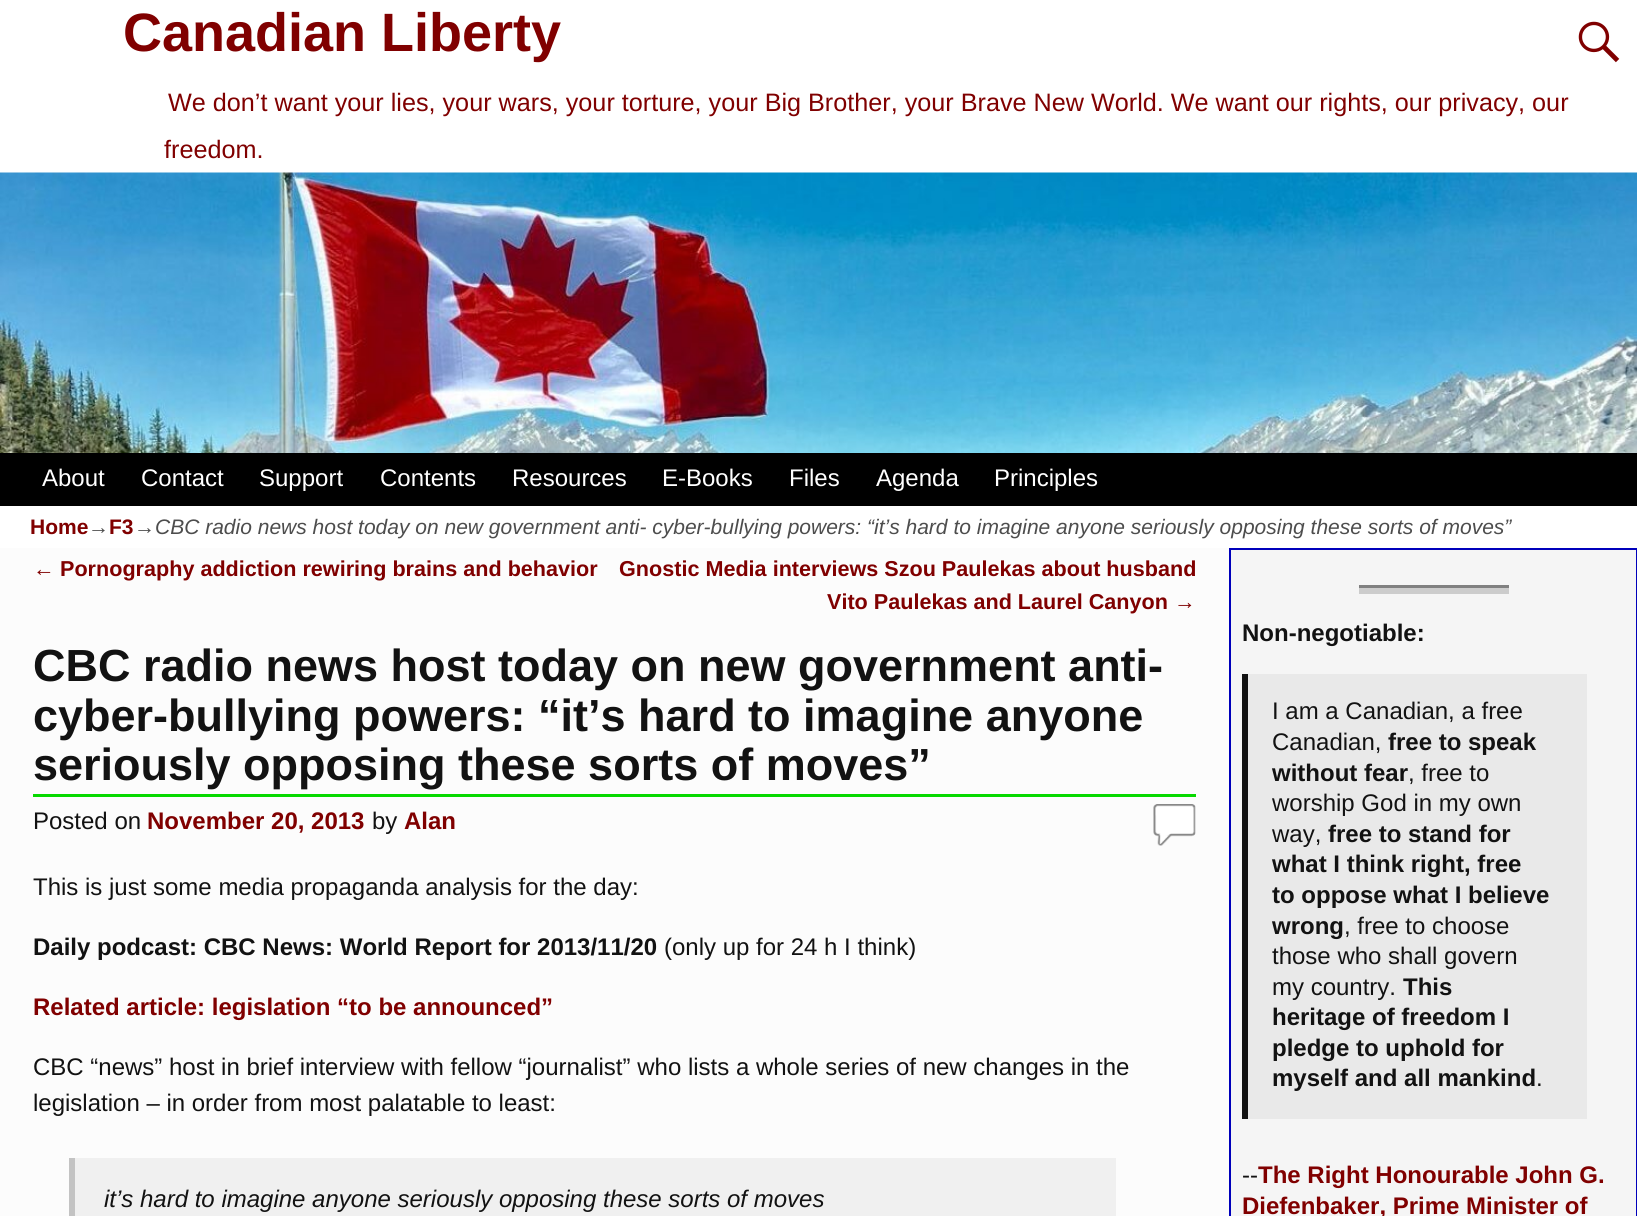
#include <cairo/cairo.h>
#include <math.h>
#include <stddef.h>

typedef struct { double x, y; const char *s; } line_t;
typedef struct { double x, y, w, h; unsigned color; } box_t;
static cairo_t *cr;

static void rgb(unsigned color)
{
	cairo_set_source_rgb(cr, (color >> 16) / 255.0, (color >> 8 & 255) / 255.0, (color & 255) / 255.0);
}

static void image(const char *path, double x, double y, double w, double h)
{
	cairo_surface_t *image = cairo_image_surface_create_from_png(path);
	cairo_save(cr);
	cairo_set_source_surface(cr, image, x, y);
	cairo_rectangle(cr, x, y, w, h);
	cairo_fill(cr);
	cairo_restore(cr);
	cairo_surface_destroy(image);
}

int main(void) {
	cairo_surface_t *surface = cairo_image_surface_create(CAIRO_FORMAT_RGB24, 1637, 1216);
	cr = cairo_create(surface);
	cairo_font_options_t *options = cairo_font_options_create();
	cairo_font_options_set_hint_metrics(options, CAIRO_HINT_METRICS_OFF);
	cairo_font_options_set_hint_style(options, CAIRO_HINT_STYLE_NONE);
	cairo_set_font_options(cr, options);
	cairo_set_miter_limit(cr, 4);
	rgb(0xfcfcfc);
	cairo_paint(cr);
	rgb(0xffffff);
	cairo_rectangle(cr, 0, 0, 1637, 173);
	cairo_fill(cr);
	image("img/1.png", 1578, 21, 42, 42);
	image("img/2.png", 0, 172, 1637, 281);
	{
		static const box_t items[] = {
			{0, 453, 1637, 53, 0x000000},
			{0, 506, 1637, 42, 0xffffff},
			{33, 794, 1163, 3, 0x07d900},
		};
		for (size_t i = 0; i < sizeof items / sizeof *items; i++) {
			rgb(items[i].color);
			cairo_rectangle(cr, items[i].x, items[i].y, items[i].w, items[i].h);
			cairo_fill(cr);
		}
	}
	image("img/3.png", 1153, 804, 43, 42);
	rgb(0xf0f0f0);
	cairo_rectangle(cr, 75, 1158, 1041, 58);
	cairo_fill(cr);
	rgb(0xc3c3c3);
	cairo_rectangle(cr, 69, 1158, 6, 58);
	cairo_fill(cr);
	rgb(0xf5f5f5);
	cairo_rectangle(cr, 1230, 549, 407, 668);
	cairo_fill_preserve(cr);
	rgb(0x0000bb);
	cairo_stroke(cr);
	{
		static const box_t items[] = {
			{1359, 588, 150, 6, 0xcccccc},
			{1359, 585, 150, 3, 0x808080},
			{1248, 674, 339, 445, 0xe9e9e9},
			{1242, 674, 6, 445, 0x121212},
		};
		for (size_t i = 0; i < sizeof items / sizeof *items; i++) {
			rgb(items[i].color);
			cairo_rectangle(cr, items[i].x, items[i].y, items[i].w, items[i].h);
			cairo_fill(cr);
		}
	}
	cairo_select_font_face(cr, "Liberation Sans", CAIRO_FONT_SLANT_NORMAL, CAIRO_FONT_WEIGHT_BOLD);
	cairo_set_font_size(cr, 54);
	rgb(0x800000);
	cairo_move_to(cr, 123, 51);
	cairo_show_text(cr, "Canadian Liberty");
	cairo_select_font_face(cr, "Liberation Sans", CAIRO_FONT_SLANT_NORMAL, CAIRO_FONT_WEIGHT_NORMAL);
	cairo_set_font_size(cr, 25.2);
	cairo_move_to(cr, 168, 111);
	cairo_show_text(cr, "We don’t want your lies, your wars, your torture, your Big Brother, your Brave New World. We want our rights, our privacy, our");
	cairo_move_to(cr, 164, 158);
	cairo_show_text(cr, "freedom.");
	cairo_set_font_size(cr, 24);
	rgb(0xffffff);
	{
		static const line_t items[] = {
			{42, 486, "About"},
			{141, 486, "Contact"},
			{259, 486, "Support"},
			{380, 486, "Contents"},
			{512, 486, "Resources"},
			{662, 486, "E-Books"},
			{789, 486, "Files"},
			{876, 486, "Agenda"},
			{994, 486, "Principles"},
		};
		for (size_t i = 0; i < sizeof items / sizeof *items; i++) {
			cairo_move_to(cr, items[i].x, items[i].y);
			cairo_show_text(cr, items[i].s);
		}
	}
	cairo_select_font_face(cr, "Liberation Sans", CAIRO_FONT_SLANT_NORMAL, CAIRO_FONT_WEIGHT_BOLD);
	cairo_set_font_size(cr, 21);
	rgb(0x800000);
	cairo_move_to(cr, 30, 534);
	cairo_show_text(cr, "Home");
	cairo_select_font_face(cr, "Liberation Sans", CAIRO_FONT_SLANT_NORMAL, CAIRO_FONT_WEIGHT_NORMAL);
	rgb(0x4d4d4d);
	cairo_move_to(cr, 88, 534);
	cairo_show_text(cr, "→");
	cairo_select_font_face(cr, "Liberation Sans", CAIRO_FONT_SLANT_NORMAL, CAIRO_FONT_WEIGHT_BOLD);
	rgb(0x800000);
	cairo_move_to(cr, 109, 534);
	cairo_show_text(cr, "F3");
	cairo_select_font_face(cr, "Liberation Sans", CAIRO_FONT_SLANT_NORMAL, CAIRO_FONT_WEIGHT_NORMAL);
	rgb(0x4d4d4d);
	cairo_move_to(cr, 134, 534);
	cairo_show_text(cr, "→");
	cairo_select_font_face(cr, "Liberation Sans", CAIRO_FONT_SLANT_ITALIC, CAIRO_FONT_WEIGHT_NORMAL);
	cairo_move_to(cr, 155, 534);
	cairo_show_text(cr, "CBC radio news host today on new government anti- cyber-bullying powers: “it’s hard to imagine anyone seriously opposing these sorts of moves”");
	cairo_select_font_face(cr, "Liberation Sans", CAIRO_FONT_SLANT_NORMAL, CAIRO_FONT_WEIGHT_NORMAL);
	cairo_set_font_size(cr, 21.6);
	rgb(0x800000);
	cairo_move_to(cr, 33, 576);
	cairo_show_text(cr, "←");
	cairo_select_font_face(cr, "Liberation Sans", CAIRO_FONT_SLANT_NORMAL, CAIRO_FONT_WEIGHT_BOLD);
	{
		static const line_t items[] = {
			{60, 576, "Pornography addiction rewiring brains and behavior"},
			{619, 576, "Gnostic Media interviews Szou Paulekas about husband"},
			{827, 609, "Vito Paulekas and Laurel Canyon"},
		};
		for (size_t i = 0; i < sizeof items / sizeof *items; i++) {
			cairo_move_to(cr, items[i].x, items[i].y);
			cairo_show_text(cr, items[i].s);
		}
	}
	cairo_select_font_face(cr, "Liberation Sans", CAIRO_FONT_SLANT_NORMAL, CAIRO_FONT_WEIGHT_NORMAL);
	cairo_move_to(cr, 1174, 609);
	cairo_show_text(cr, "→");
	cairo_select_font_face(cr, "Liberation Sans", CAIRO_FONT_SLANT_NORMAL, CAIRO_FONT_WEIGHT_BOLD);
	cairo_set_font_size(cr, 45);
	rgb(0x121212);
	{
		static const line_t items[] = {
			{33, 681, "CBC radio news host today on new government anti-"},
			{33, 731, "cyber-bullying powers: “it’s hard to imagine anyone"},
			{33, 780, "seriously opposing these sorts of moves”"},
		};
		for (size_t i = 0; i < sizeof items / sizeof *items; i++) {
			cairo_move_to(cr, items[i].x, items[i].y);
			cairo_show_text(cr, items[i].s);
		}
	}
	cairo_select_font_face(cr, "Liberation Sans", CAIRO_FONT_SLANT_NORMAL, CAIRO_FONT_WEIGHT_NORMAL);
	cairo_set_font_size(cr, 24);
	cairo_move_to(cr, 33, 829);
	cairo_show_text(cr, "Posted on");
	cairo_select_font_face(cr, "Liberation Sans", CAIRO_FONT_SLANT_NORMAL, CAIRO_FONT_WEIGHT_BOLD);
	rgb(0x800000);
	cairo_move_to(cr, 147, 829);
	cairo_show_text(cr, "November 20, 2013");
	cairo_select_font_face(cr, "Liberation Sans", CAIRO_FONT_SLANT_NORMAL, CAIRO_FONT_WEIGHT_NORMAL);
	rgb(0x121212);
	cairo_move_to(cr, 372, 829);
	cairo_show_text(cr, "by");
	cairo_select_font_face(cr, "Liberation Sans", CAIRO_FONT_SLANT_NORMAL, CAIRO_FONT_WEIGHT_BOLD);
	rgb(0x800000);
	cairo_move_to(cr, 404, 829);
	cairo_show_text(cr, "Alan");
	cairo_select_font_face(cr, "Liberation Sans", CAIRO_FONT_SLANT_NORMAL, CAIRO_FONT_WEIGHT_NORMAL);
	rgb(0x121212);
	cairo_move_to(cr, 33, 895);
	cairo_show_text(cr, "This is just some media propaganda analysis for the day:");
	cairo_select_font_face(cr, "Liberation Sans", CAIRO_FONT_SLANT_NORMAL, CAIRO_FONT_WEIGHT_BOLD);
	cairo_move_to(cr, 33, 955);
	cairo_show_text(cr, "Daily podcast: CBC News: World Report for 2013/11/20");
	cairo_select_font_face(cr, "Liberation Sans", CAIRO_FONT_SLANT_NORMAL, CAIRO_FONT_WEIGHT_NORMAL);
	cairo_move_to(cr, 664, 955);
	cairo_show_text(cr, "(only up for 24 h I think)");
	cairo_select_font_face(cr, "Liberation Sans", CAIRO_FONT_SLANT_NORMAL, CAIRO_FONT_WEIGHT_BOLD);
	rgb(0x800000);
	cairo_move_to(cr, 33, 1015);
	cairo_show_text(cr, "Related article: legislation “to be announced”");
	cairo_select_font_face(cr, "Liberation Sans", CAIRO_FONT_SLANT_NORMAL, CAIRO_FONT_WEIGHT_NORMAL);
	rgb(0x121212);
	cairo_move_to(cr, 33, 1075);
	cairo_show_text(cr, "CBC “news” host in brief interview with fellow “journalist” who lists a whole series of new changes in the");
	cairo_move_to(cr, 33, 1111);
	cairo_show_text(cr, "legislation – in order from most palatable to least:");
	cairo_select_font_face(cr, "Liberation Sans", CAIRO_FONT_SLANT_ITALIC, CAIRO_FONT_WEIGHT_NORMAL);
	cairo_move_to(cr, 104, 1207);
	cairo_show_text(cr, "it’s hard to imagine anyone seriously opposing these sorts of moves");
	cairo_select_font_face(cr, "Liberation Sans", CAIRO_FONT_SLANT_NORMAL, CAIRO_FONT_WEIGHT_BOLD);
	cairo_move_to(cr, 1242, 641);
	cairo_show_text(cr, "Non-negotiable:");
	cairo_select_font_face(cr, "Liberation Sans", CAIRO_FONT_SLANT_NORMAL, CAIRO_FONT_WEIGHT_NORMAL);
	cairo_move_to(cr, 1272, 719);
	cairo_show_text(cr, "I am a Canadian, a free");
	cairo_move_to(cr, 1272, 750);
	cairo_show_text(cr, "Canadian,");
	cairo_select_font_face(cr, "Liberation Sans", CAIRO_FONT_SLANT_NORMAL, CAIRO_FONT_WEIGHT_BOLD);
	cairo_move_to(cr, 1388, 750);
	cairo_show_text(cr, "free to speak");
	cairo_move_to(cr, 1272, 781);
	cairo_show_text(cr, "without fear");
	cairo_select_font_face(cr, "Liberation Sans", CAIRO_FONT_SLANT_NORMAL, CAIRO_FONT_WEIGHT_NORMAL);
	{
		static const line_t items[] = {
			{1408, 781, ", free to"},
			{1272, 811, "worship God in my own"},
			{1272, 842, "way,"},
		};
		for (size_t i = 0; i < sizeof items / sizeof *items; i++) {
			cairo_move_to(cr, items[i].x, items[i].y);
			cairo_show_text(cr, items[i].s);
		}
	}
	cairo_select_font_face(cr, "Liberation Sans", CAIRO_FONT_SLANT_NORMAL, CAIRO_FONT_WEIGHT_BOLD);
	{
		static const line_t items[] = {
			{1328, 842, "free to stand for"},
			{1272, 872, "what I think right, free"},
			{1272, 903, "to oppose what I believe"},
			{1272, 934, "wrong"},
		};
		for (size_t i = 0; i < sizeof items / sizeof *items; i++) {
			cairo_move_to(cr, items[i].x, items[i].y);
			cairo_show_text(cr, items[i].s);
		}
	}
	cairo_select_font_face(cr, "Liberation Sans", CAIRO_FONT_SLANT_NORMAL, CAIRO_FONT_WEIGHT_NORMAL);
	{
		static const line_t items[] = {
			{1344, 934, ", free to choose"},
			{1272, 964, "those who shall govern"},
			{1272, 995, "my country."},
		};
		for (size_t i = 0; i < sizeof items / sizeof *items; i++) {
			cairo_move_to(cr, items[i].x, items[i].y);
			cairo_show_text(cr, items[i].s);
		}
	}
	cairo_select_font_face(cr, "Liberation Sans", CAIRO_FONT_SLANT_NORMAL, CAIRO_FONT_WEIGHT_BOLD);
	{
		static const line_t items[] = {
			{1403, 995, "This"},
			{1272, 1025, "heritage of freedom I"},
			{1272, 1056, "pledge to uphold for"},
			{1272, 1086, "myself and all mankind"},
		};
		for (size_t i = 0; i < sizeof items / sizeof *items; i++) {
			cairo_move_to(cr, items[i].x, items[i].y);
			cairo_show_text(cr, items[i].s);
		}
	}
	cairo_select_font_face(cr, "Liberation Sans", CAIRO_FONT_SLANT_NORMAL, CAIRO_FONT_WEIGHT_NORMAL);
	cairo_move_to(cr, 1536, 1086);
	cairo_show_text(cr, ".");
	cairo_move_to(cr, 1242, 1183);
	cairo_show_text(cr, "--");
	cairo_select_font_face(cr, "Liberation Sans", CAIRO_FONT_SLANT_NORMAL, CAIRO_FONT_WEIGHT_BOLD);
	rgb(0x800000);
	cairo_move_to(cr, 1258, 1183);
	cairo_show_text(cr, "The Right Honourable John G.");
	cairo_move_to(cr, 1242, 1214);
	cairo_show_text(cr, "Diefenbaker, Prime Minister of");
	cairo_surface_write_to_png(surface, "page.png");
	cairo_font_options_destroy(options);
	cairo_destroy(cr);
	cairo_surface_destroy(surface);
	return 0;
}
